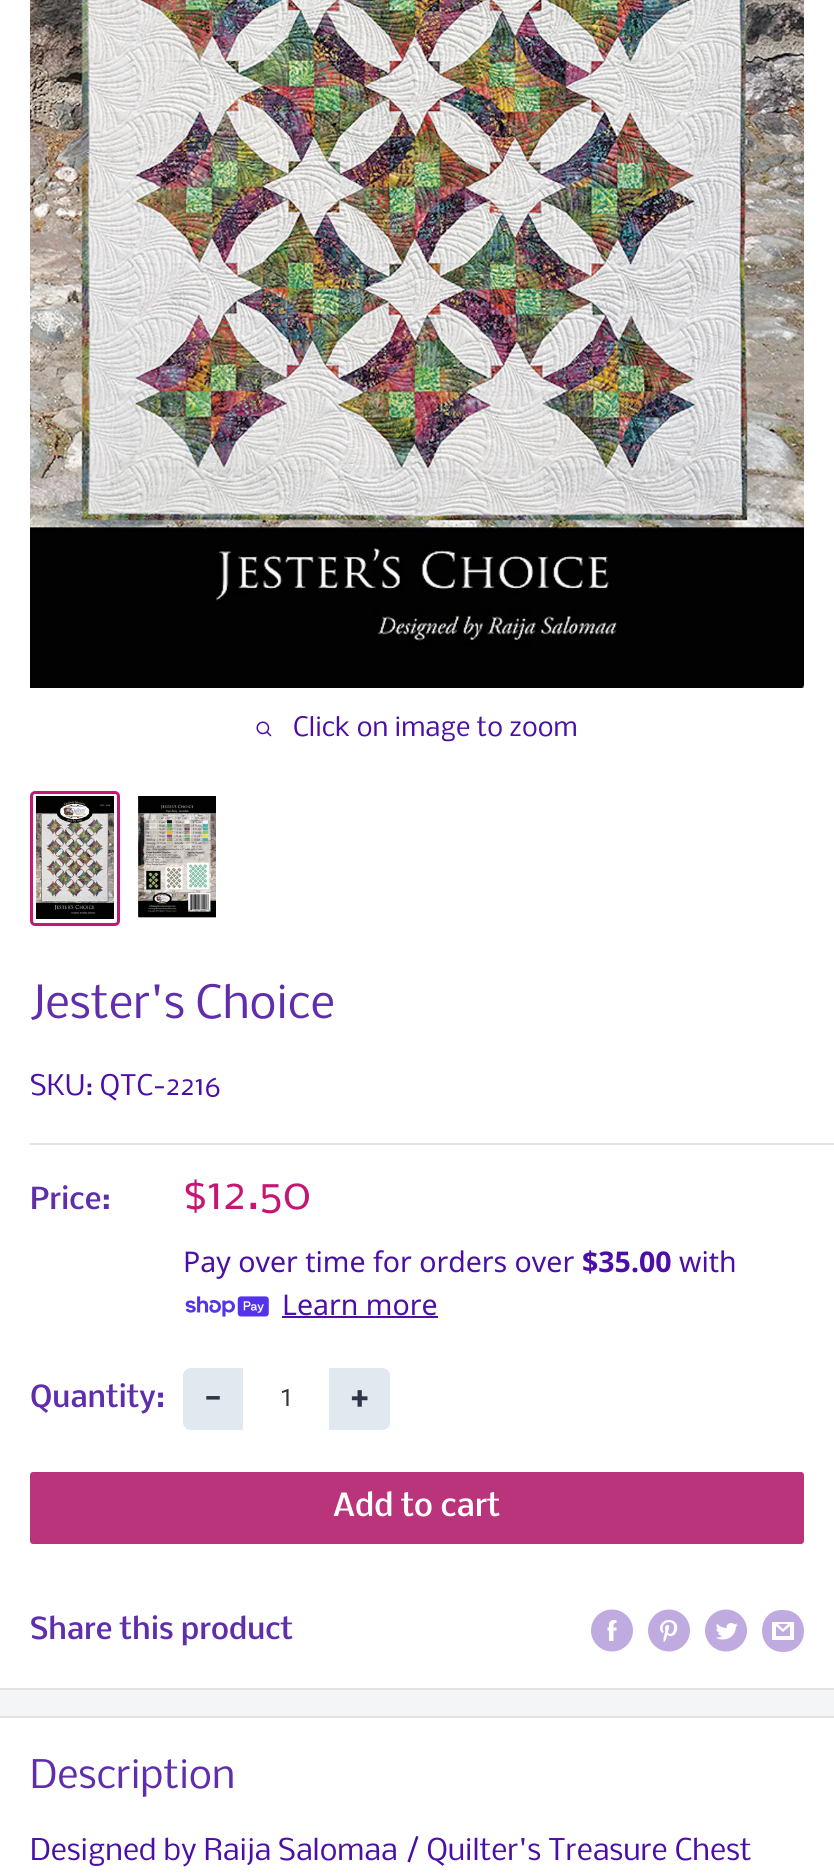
#include <cairo/cairo.h>
#include <math.h>
#include <stddef.h>

static cairo_t *cr;

static void rgb(unsigned color)
{
	cairo_set_source_rgb(cr, (color >> 16) / 255.0, (color >> 8 & 255) / 255.0, (color & 255) / 255.0);
}

static void rrect(double x, double y, double w, double h, double r)
{
	cairo_new_sub_path(cr);
	cairo_arc(cr, x + w - r, y + h - r, r, 0, M_PI / 2);
	cairo_arc(cr, x + r, y + h - r, r, M_PI / 2, M_PI);
	cairo_arc(cr, x + r, y + r, r, M_PI, 1.5 * M_PI);
	cairo_arc(cr, x + w - r, y + r, r, 1.5 * M_PI, 2 * M_PI);
	cairo_close_path(cr);
}

static void image(const char *path, double x, double y, double w, double h)
{
	cairo_surface_t *image = cairo_image_surface_create_from_png(path);
	cairo_save(cr);
	cairo_set_source_surface(cr, image, x, y);
	cairo_rectangle(cr, x, y, w, h);
	cairo_fill(cr);
	cairo_restore(cr);
	cairo_surface_destroy(image);
}

int main(void) {
	cairo_surface_t *surface = cairo_image_surface_create(CAIRO_FORMAT_RGB24, 834, 1875);
	cr = cairo_create(surface);
	cairo_font_options_t *options = cairo_font_options_create();
	cairo_font_options_set_hint_metrics(options, CAIRO_HINT_METRICS_OFF);
	cairo_font_options_set_hint_style(options, CAIRO_HINT_STYLE_NONE);
	cairo_set_font_options(cr, options);
	cairo_set_miter_limit(cr, 4);
	rgb(0xf3f5f6);
	cairo_paint(cr);
	rgb(0xffffff);
	cairo_rectangle(cr, 0, 0, 834, 1688);
	cairo_fill(cr);
	image("img/1.png", 30, 0, 774, 688);
	image("img/2.png", 256, 721, 16, 16);
	rrect(31.5, 792.5, 87, 132, 3.5);
	rgb(0xc61674);
	cairo_set_line_width(cr, 3);
	cairo_stroke(cr);
	image("img/3.png", 36, 796, 78, 123);
	image("img/4.png", 138, 796, 78, 122);
	rgb(0xe1e3e4);
	cairo_rectangle(cr, 0, 1688, 834, 2);
	cairo_fill(cr);
	cairo_rectangle(cr, 30, 1143, 804, 2);
	cairo_fill(cr);
	image("img/5.png", 185, 1296, 84, 21);
	rgb(0x4b0ea7);
	cairo_rectangle(cr, 282, 1316, 156, 2);
	cairo_fill(cr);
	rgb(0xe2e8f0);
	cairo_new_path(cr);
	cairo_move_to(cr, 191, 1368);
	cairo_line_to(cr, 243, 1368);
	cairo_line_to(cr, 243, 1430);
	cairo_line_to(cr, 191, 1430);
	cairo_curve_to(cr, 186.5, 1430, 183, 1426.5, 183, 1422);
	cairo_line_to(cr, 183, 1376);
	cairo_curve_to(cr, 183, 1371.5, 186.5, 1368, 191, 1368);
	cairo_close_path(cr);
	cairo_fill(cr);
	cairo_new_path(cr);
	cairo_move_to(cr, 329, 1368);
	cairo_line_to(cr, 382, 1368);
	cairo_curve_to(cr, 386.5, 1368, 390, 1371.5, 390, 1376);
	cairo_line_to(cr, 390, 1422);
	cairo_curve_to(cr, 390, 1426.5, 386.5, 1430, 382, 1430);
	cairo_line_to(cr, 329, 1430);
	cairo_close_path(cr);
	cairo_fill(cr);
	rgb(0xba347c);
	rrect(30, 1472, 774, 72, 3);
	cairo_fill(cr);
	image("img/6.png", 591, 1609, 42, 43);
	image("img/7.png", 648, 1609, 42, 43);
	image("img/8.png", 705, 1609, 42, 43);
	rgb(0xc0abe0);
	cairo_new_path(cr);
	cairo_move_to(cr, 783, 1652);
	cairo_curve_to(cr, 755, 1652, 755, 1609, 783, 1610);
	cairo_curve_to(cr, 811, 1610, 811, 1652, 783, 1652);
	cairo_close_path(cr);
	cairo_move_to(cr, 778, 1624);
	cairo_line_to(cr, 788, 1624);
	cairo_line_to(cr, 783, 1629);
	cairo_close_path(cr);
	cairo_move_to(cr, 790, 1626);
	cairo_line_to(cr, 790, 1636);
	cairo_line_to(cr, 776, 1636);
	cairo_line_to(cr, 776, 1626);
	cairo_line_to(cr, 783, 1632);
	cairo_close_path(cr);
	cairo_move_to(cr, 794, 1622);
	cairo_line_to(cr, 772, 1622);
	cairo_line_to(cr, 772, 1640);
	cairo_line_to(cr, 794, 1640);
	cairo_close_path(cr);
	cairo_fill(cr);
	rgb(0xffffff);
	cairo_rectangle(cr, 0, 1718, 834, 157);
	cairo_fill(cr);
	rgb(0xe1e3e4);
	cairo_rectangle(cr, 0, 1716, 834, 2);
	cairo_fill(cr);
	cairo_select_font_face(cr, "Nobile", CAIRO_FONT_SLANT_NORMAL, CAIRO_FONT_WEIGHT_NORMAL);
	cairo_set_font_size(cr, 25.5);
	rgb(0x4b0ea7);
	cairo_move_to(cr, 293, 736);
	cairo_show_text(cr, "Click on image to zoom");
	cairo_set_font_size(cr, 43.5);
	rgb(0x602eac);
	cairo_move_to(cr, 30, 1018);
	cairo_show_text(cr, "Jester's Choice");
	cairo_set_font_size(cr, 27);
	rgb(0x4b0ea7);
	cairo_move_to(cr, 30, 1095);
	cairo_show_text(cr, "SKU: QTC-2216");
	cairo_select_font_face(cr, "Nobile Medium", CAIRO_FONT_SLANT_NORMAL, CAIRO_FONT_WEIGHT_NORMAL);
	cairo_set_font_size(cr, 28.5);
	rgb(0x602eac);
	cairo_move_to(cr, 30, 1209);
	cairo_show_text(cr, "Price:");
	cairo_select_font_face(cr, "Nobile", CAIRO_FONT_SLANT_NORMAL, CAIRO_FONT_WEIGHT_NORMAL);
	cairo_set_font_size(cr, 43.5);
	rgb(0xc61674);
	cairo_move_to(cr, 183, 1209);
	cairo_show_text(cr, "$12.50");
	cairo_select_font_face(cr, "Noto Sans", CAIRO_FONT_SLANT_NORMAL, CAIRO_FONT_WEIGHT_NORMAL);
	cairo_set_font_size(cr, 28.5);
	rgb(0x4b0ea7);
	cairo_move_to(cr, 183, 1272);
	cairo_show_text(cr, "Pay over time for orders over");
	cairo_select_font_face(cr, "Noto Sans", CAIRO_FONT_SLANT_NORMAL, CAIRO_FONT_WEIGHT_BOLD);
	cairo_move_to(cr, 582, 1272);
	cairo_show_text(cr, "$35.00");
	cairo_select_font_face(cr, "Noto Sans", CAIRO_FONT_SLANT_NORMAL, CAIRO_FONT_WEIGHT_NORMAL);
	cairo_move_to(cr, 679, 1272);
	cairo_show_text(cr, "with");
	cairo_move_to(cr, 282, 1315);
	cairo_show_text(cr, "Learn more");
	cairo_select_font_face(cr, "Nobile Medium", CAIRO_FONT_SLANT_NORMAL, CAIRO_FONT_WEIGHT_NORMAL);
	rgb(0x602eac);
	cairo_move_to(cr, 30, 1407);
	cairo_show_text(cr, "Quantity:");
	cairo_select_font_face(cr, "Roboto", CAIRO_FONT_SLANT_NORMAL, CAIRO_FONT_WEIGHT_BOLD);
	cairo_set_font_size(cr, 32);
	rgb(0x2d3748);
	cairo_move_to(cr, 204, 1409);
	cairo_show_text(cr, "−");
	cairo_select_font_face(cr, "Roboto", CAIRO_FONT_SLANT_NORMAL, CAIRO_FONT_WEIGHT_NORMAL);
	cairo_set_font_size(cr, 24);
	rgb(0x333333);
	cairo_move_to(cr, 280, 1406);
	cairo_show_text(cr, "1");
	cairo_select_font_face(cr, "Roboto", CAIRO_FONT_SLANT_NORMAL, CAIRO_FONT_WEIGHT_BOLD);
	cairo_set_font_size(cr, 32);
	rgb(0x2d3748);
	cairo_move_to(cr, 351, 1409);
	cairo_show_text(cr, "+");
	cairo_select_font_face(cr, "Nobile Medium", CAIRO_FONT_SLANT_NORMAL, CAIRO_FONT_WEIGHT_NORMAL);
	cairo_set_font_size(cr, 30);
	rgb(0xffffff);
	cairo_move_to(cr, 333, 1516);
	cairo_show_text(cr, "Add to cart");
	cairo_set_font_size(cr, 28.5);
	rgb(0x602eac);
	cairo_move_to(cr, 30, 1639);
	cairo_show_text(cr, "Share this product");
	cairo_select_font_face(cr, "Nobile", CAIRO_FONT_SLANT_NORMAL, CAIRO_FONT_WEIGHT_NORMAL);
	cairo_set_font_size(cr, 37.5);
	cairo_move_to(cr, 30, 1788);
	cairo_show_text(cr, "Description");
	cairo_set_font_size(cr, 28.5);
	rgb(0x4b0ea7);
	cairo_move_to(cr, 30, 1860);
	cairo_show_text(cr, "Designed by Raija Salomaa / Quilter's Treasure Chest");
	cairo_surface_write_to_png(surface, "page.png");
	cairo_font_options_destroy(options);
	cairo_destroy(cr);
	cairo_surface_destroy(surface);
	return 0;
}
